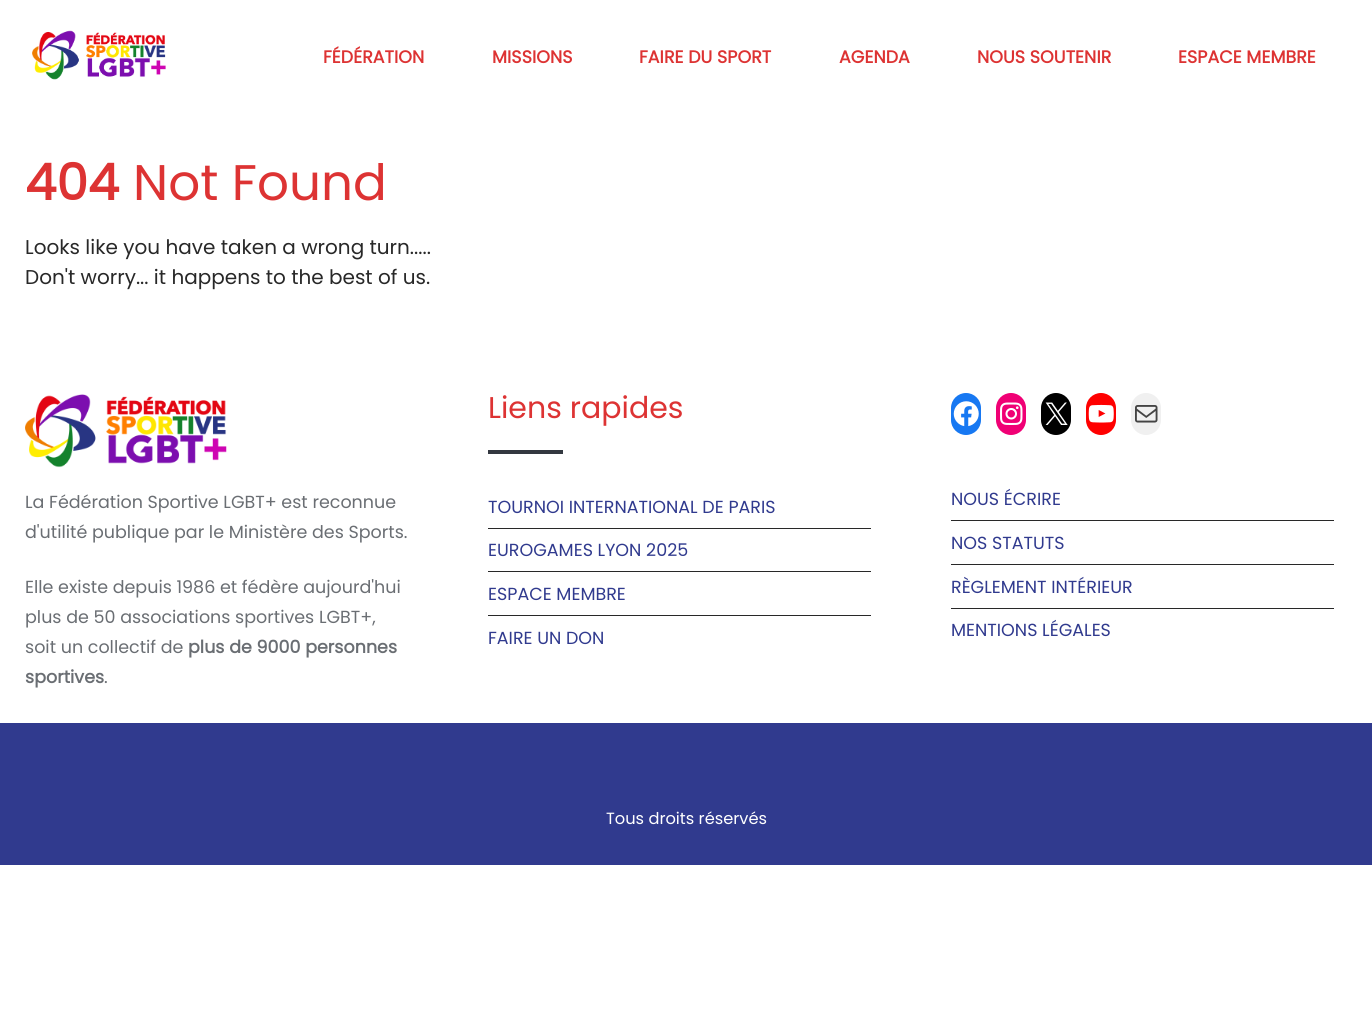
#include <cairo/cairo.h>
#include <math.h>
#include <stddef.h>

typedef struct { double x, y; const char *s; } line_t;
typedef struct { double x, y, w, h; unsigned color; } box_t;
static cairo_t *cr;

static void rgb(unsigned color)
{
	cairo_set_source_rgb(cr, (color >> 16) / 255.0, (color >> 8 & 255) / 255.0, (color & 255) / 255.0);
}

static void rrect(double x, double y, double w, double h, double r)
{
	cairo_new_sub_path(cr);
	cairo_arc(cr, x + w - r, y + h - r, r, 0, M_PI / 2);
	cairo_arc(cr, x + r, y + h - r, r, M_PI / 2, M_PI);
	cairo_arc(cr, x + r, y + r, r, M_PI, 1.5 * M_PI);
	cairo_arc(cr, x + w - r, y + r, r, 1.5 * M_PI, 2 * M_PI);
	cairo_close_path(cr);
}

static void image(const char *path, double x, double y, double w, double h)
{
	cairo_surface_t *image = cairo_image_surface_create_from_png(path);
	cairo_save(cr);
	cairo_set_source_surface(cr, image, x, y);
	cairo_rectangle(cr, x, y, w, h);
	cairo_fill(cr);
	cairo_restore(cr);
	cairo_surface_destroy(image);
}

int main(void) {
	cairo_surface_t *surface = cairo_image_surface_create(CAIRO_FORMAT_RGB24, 1372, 1015);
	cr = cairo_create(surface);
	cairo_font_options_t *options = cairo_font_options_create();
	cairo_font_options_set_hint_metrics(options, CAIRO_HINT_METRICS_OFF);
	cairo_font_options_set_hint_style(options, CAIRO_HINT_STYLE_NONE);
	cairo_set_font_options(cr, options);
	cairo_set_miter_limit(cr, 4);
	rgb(0xffffff);
	cairo_paint(cr);
	image("img/1.png", 32, 30, 134, 50);
	{
		static const box_t items[] = {
			{488, 450, 75, 4, 0x333840},
			{488, 528, 383, 1, 0x282828},
			{488, 571, 383, 1, 0x282828},
			{488, 615, 383, 1, 0x282828},
		};
		for (size_t i = 0; i < sizeof items / sizeof *items; i++) {
			rgb(items[i].color);
			cairo_rectangle(cr, items[i].x, items[i].y, items[i].w, items[i].h);
			cairo_fill(cr);
		}
	}
	rgb(0x1778f2);
	rrect(951, 393, 30, 42, 15);
	cairo_fill(cr);
	image("img/2.png", 953, 401, 26, 26);
	rgb(0xf00075);
	rrect(996, 393, 30, 42, 15);
	cairo_fill(cr);
	image("img/3.png", 1000, 402, 23, 23);
	rgb(0x000000);
	rrect(1041, 393, 30, 42, 15);
	cairo_fill(cr);
	image("img/4.png", 1045, 402, 23, 23);
	rgb(0xff0000);
	rrect(1086, 393, 30, 42, 15);
	cairo_fill(cr);
	image("img/5.png", 1088, 404, 26, 19);
	rgb(0xf0f0f0);
	rrect(1131, 393, 30, 42, 15);
	cairo_fill(cr);
	image("img/6.png", 1135, 405, 23, 18);
	image("img/7.png", 25, 394, 202, 74);
	{
		static const box_t items[] = {
			{951, 520, 383, 1, 0x282828},
			{951, 564, 383, 1, 0x282828},
			{951, 608, 383, 1, 0x282828},
			{0, 723, 1372, 142, 0x303a8e},
		};
		for (size_t i = 0; i < sizeof items / sizeof *items; i++) {
			rgb(items[i].color);
			cairo_rectangle(cr, items[i].x, items[i].y, items[i].w, items[i].h);
			cairo_fill(cr);
		}
	}
	cairo_select_font_face(cr, "Poppins", CAIRO_FONT_SLANT_NORMAL, CAIRO_FONT_WEIGHT_BOLD);
	cairo_set_font_size(cr, 17.5);
	rgb(0xdd3333);
	{
		static const line_t items[] = {
			{323, 63, "FÉDÉRATION"},
			{492, 63, "MISSIONS"},
			{639, 63, "FAIRE DU SPORT"},
			{839, 63, "AGENDA"},
			{977, 63, "NOUS SOUTENIR"},
			{1178, 63, "ESPACE MEMBRE"},
		};
		for (size_t i = 0; i < sizeof items / sizeof *items; i++) {
			cairo_move_to(cr, items[i].x, items[i].y);
			cairo_show_text(cr, items[i].s);
		}
	}
	cairo_set_font_size(cr, 50);
	cairo_move_to(cr, 25, 200);
	cairo_show_text(cr, "404");
	cairo_select_font_face(cr, "Poppins", CAIRO_FONT_SLANT_NORMAL, CAIRO_FONT_WEIGHT_NORMAL);
	cairo_move_to(cr, 133, 200);
	cairo_show_text(cr, "Not Found");
	cairo_set_font_size(cr, 20);
	rgb(0x282828);
	cairo_move_to(cr, 25, 254);
	cairo_show_text(cr, "Looks like you have taken a wrong turn.....");
	cairo_move_to(cr, 25, 284);
	cairo_show_text(cr, "Don't worry... it happens to the best of us.");
	cairo_set_font_size(cr, 30);
	rgb(0xdd3333);
	cairo_move_to(cr, 488, 418);
	cairo_show_text(cr, "Liens rapides");
	cairo_set_font_size(cr, 17.5);
	rgb(0x303a8e);
	{
		static const line_t items[] = {
			{488, 513, "TOURNOI INTERNATIONAL DE PARIS"},
			{488, 556, "EUROGAMES LYON 2025"},
			{488, 600, "ESPACE MEMBRE"},
			{488, 644, "FAIRE UN DON"},
		};
		for (size_t i = 0; i < sizeof items / sizeof *items; i++) {
			cairo_move_to(cr, items[i].x, items[i].y);
			cairo_show_text(cr, items[i].s);
		}
	}
	rgb(0x6a6e73);
	{
		static const line_t items[] = {
			{25, 508, "La Fédération Sportive LGBT+ est reconnue"},
			{25, 538, "d'utilité publique par le Ministère des Sports."},
			{25, 593, "Elle existe depuis 1986 et fédère aujourd'hui"},
			{25, 623, "plus de 50 associations sportives LGBT+,"},
			{25, 653, "soit un collectif de"},
		};
		for (size_t i = 0; i < sizeof items / sizeof *items; i++) {
			cairo_move_to(cr, items[i].x, items[i].y);
			cairo_show_text(cr, items[i].s);
		}
	}
	cairo_select_font_face(cr, "Poppins", CAIRO_FONT_SLANT_NORMAL, CAIRO_FONT_WEIGHT_BOLD);
	cairo_move_to(cr, 188, 653);
	cairo_show_text(cr, "plus de 9000 personnes");
	cairo_move_to(cr, 25, 683);
	cairo_show_text(cr, "sportives");
	cairo_select_font_face(cr, "Poppins", CAIRO_FONT_SLANT_NORMAL, CAIRO_FONT_WEIGHT_NORMAL);
	cairo_move_to(cr, 104, 683);
	cairo_show_text(cr, ".");
	rgb(0x303a8e);
	{
		static const line_t items[] = {
			{951, 505, "NOUS ÉCRIRE"},
			{951, 549, "NOS STATUTS"},
			{951, 593, "RÈGLEMENT INTÉRIEUR"},
			{951, 636, "MENTIONS LÉGALES"},
		};
		for (size_t i = 0; i < sizeof items / sizeof *items; i++) {
			cairo_move_to(cr, items[i].x, items[i].y);
			cairo_show_text(cr, items[i].s);
		}
	}
	cairo_set_font_size(cr, 16.25);
	rgb(0xffffff);
	cairo_move_to(cr, 606, 824);
	cairo_show_text(cr, "Tous droits réservés");
	cairo_surface_write_to_png(surface, "page.png");
	cairo_font_options_destroy(options);
	cairo_destroy(cr);
	cairo_surface_destroy(surface);
	return 0;
}
